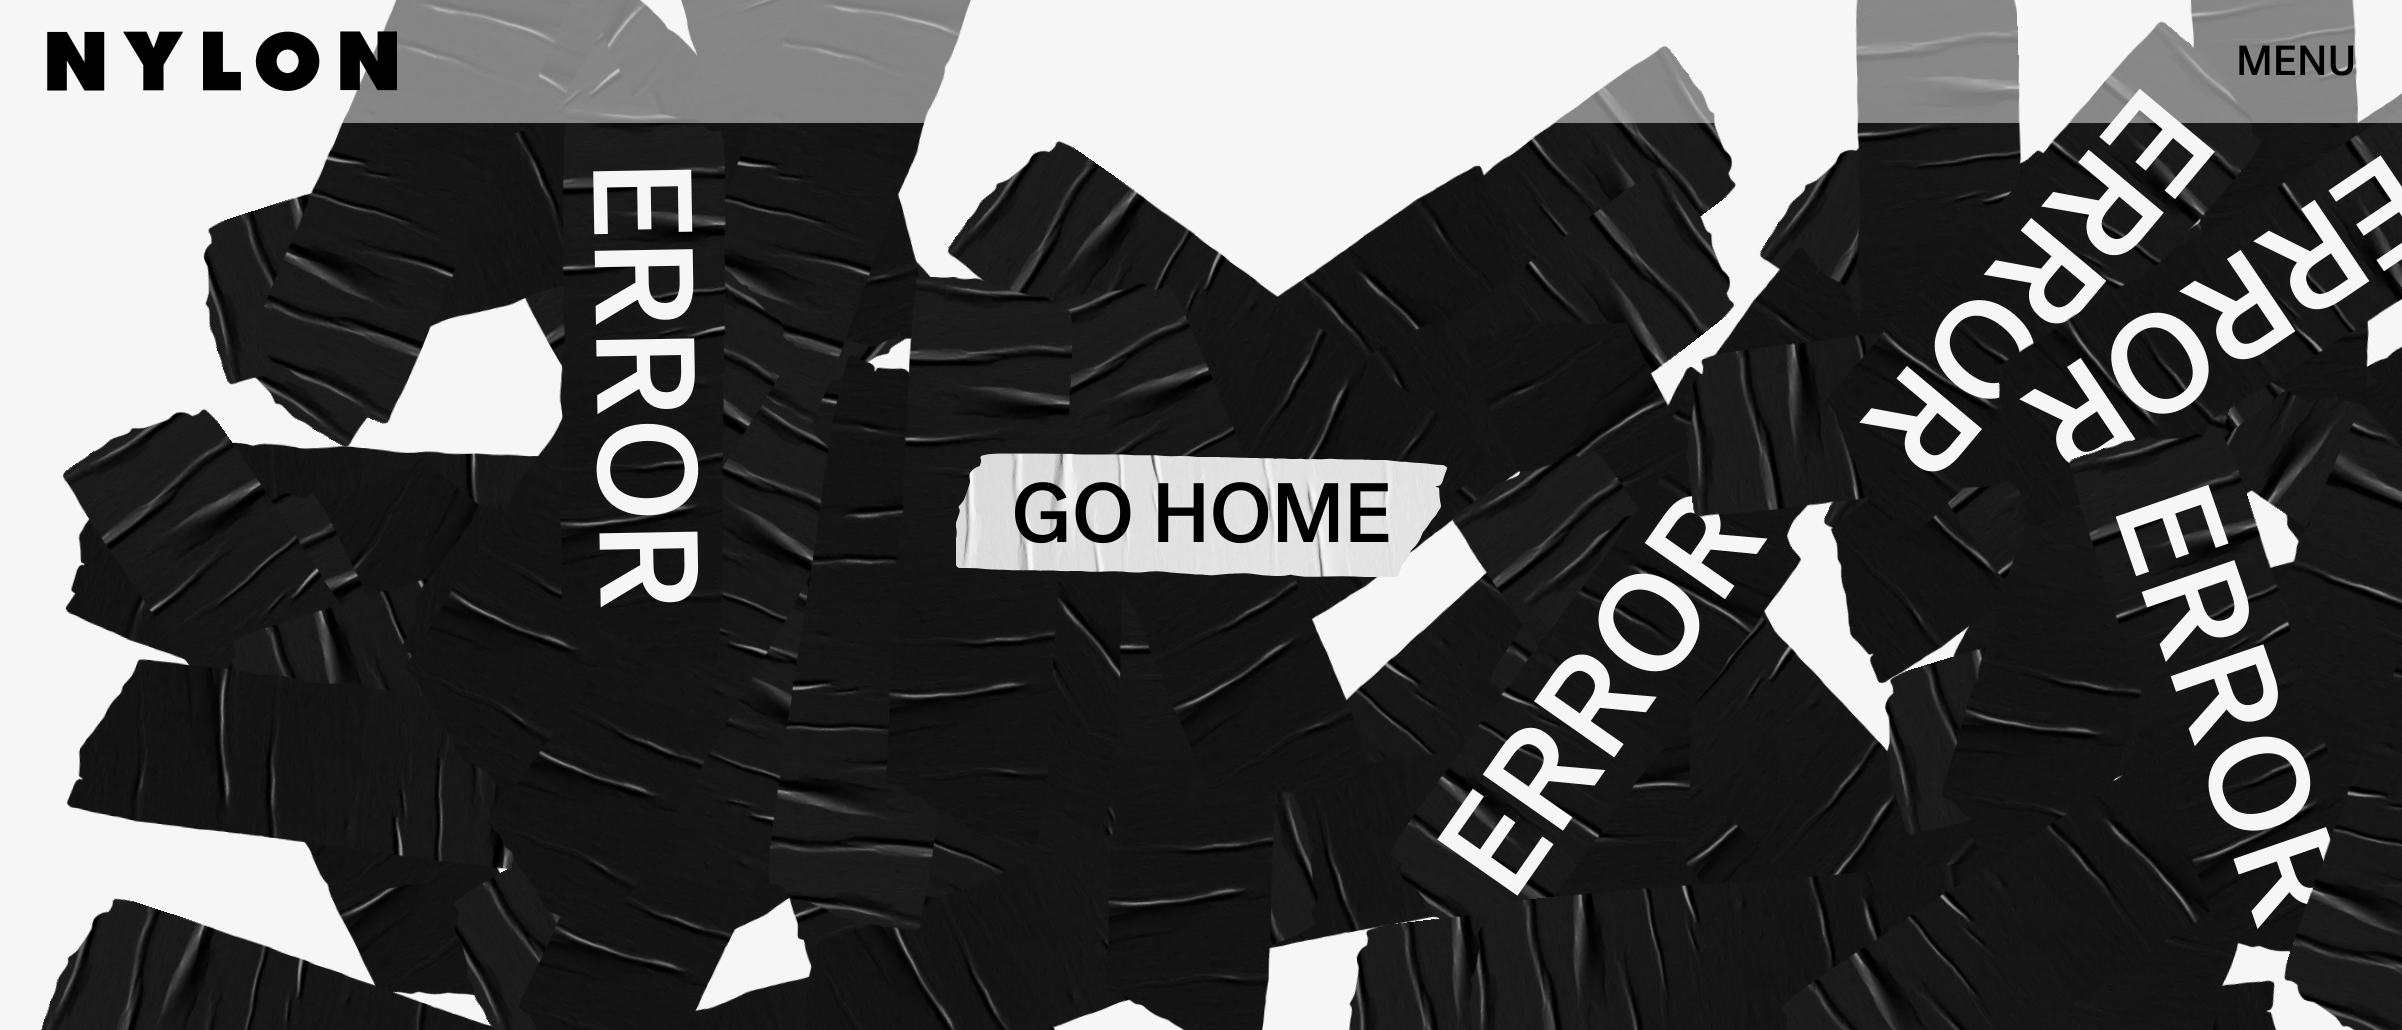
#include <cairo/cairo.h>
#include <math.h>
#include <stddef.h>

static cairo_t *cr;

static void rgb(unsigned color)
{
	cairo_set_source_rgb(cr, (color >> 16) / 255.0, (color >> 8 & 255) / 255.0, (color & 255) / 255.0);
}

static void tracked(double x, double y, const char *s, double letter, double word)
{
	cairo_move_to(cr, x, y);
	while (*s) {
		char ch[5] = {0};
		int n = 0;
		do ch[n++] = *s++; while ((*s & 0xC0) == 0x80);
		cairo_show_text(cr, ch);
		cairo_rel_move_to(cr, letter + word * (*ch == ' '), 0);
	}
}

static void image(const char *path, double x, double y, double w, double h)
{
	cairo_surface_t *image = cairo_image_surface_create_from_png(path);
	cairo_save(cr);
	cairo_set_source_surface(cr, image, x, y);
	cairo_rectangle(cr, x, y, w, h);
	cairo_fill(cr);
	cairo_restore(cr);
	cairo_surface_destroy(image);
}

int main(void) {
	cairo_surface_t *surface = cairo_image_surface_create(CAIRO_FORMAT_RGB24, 2402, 1030);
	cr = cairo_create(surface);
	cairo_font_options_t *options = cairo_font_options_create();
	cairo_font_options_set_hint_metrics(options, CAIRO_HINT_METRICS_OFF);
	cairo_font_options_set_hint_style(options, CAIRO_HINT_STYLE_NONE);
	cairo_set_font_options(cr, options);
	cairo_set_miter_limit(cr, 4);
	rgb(0xf6f6f6);
	cairo_paint(cr);
	image("img/31.png", 802, 378, 40, 71);
	image("img/4.png", 596, 0, 336, 382);
	image("img/6.png", 545, 30, 89, 95);
	image("img/39.png", 70, 442, 469, 153);
	image("img/2.png", 255, 0, 354, 447);
	image("img/25.png", 524, 285, 41, 83);
	image("img/11.png", 203, 80, 523, 305);
	image("img/41.png", 321, 459, 165, 138);
	image("img/45.png", 269, 492, 232, 504);
	image("img/49.png", 65, 543, 122, 118);
	image("img/35.png", 62, 409, 415, 486);
	image("img/3.png", 264, 0, 309, 424);
	image("img/5.png", 680, 0, 240, 347);
	image("img/8.png", 1483, 45, 253, 231);
	image("img/18.png", 1066, 165, 450, 289);
	image("img/15.png", 1759, 147, 495, 347);
	image("img/32.png", 1667, 366, 129, 172);
	image("img/54.png", 1345, 572, 180, 194);
	image("img/19.png", 1299, 166, 436, 454);
	image("img/27.png", 1293, 318, 184, 273);
	image("img/24.png", 1489, 248, 372, 451);
	image("img/28.png", 1467, 320, 311, 315);
	image("img/69.png", 1682, 860, 22, 27);
	image("img/40.png", 1452, 450, 337, 436);
	image("img/12.png", 947, 140, 539, 368);
	image("img/7.png", 724, 0, 247, 425);
	image("img/14.png", 2176, 92, 226, 156);
	image("img/30.png", 2286, 346, 116, 197);
	image("img/16.png", 2019, 149, 364, 379);
	image("img/9.png", 1855, 0, 167, 337);
	image("img/48.png", 1823, 496, 46, 33);
	image("img/61.png", 1952, 601, 55, 263);
	image("img/55.png", 1523, 515, 471, 365);
	image("img/33.png", 1830, 382, 456, 302);
	image("img/43.png", 1947, 480, 82, 102);
	image("img/56.png", 1884, 560, 411, 276);
	image("img/38.png", 2276, 405, 126, 400);
	image("img/34.png", 2361, 381, 41, 66);
	image("img/10.png", 2190, 0, 179, 404);
	image("img/50.png", 228, 576, 205, 122);
	image("img/68.png", 797, 791, 319, 150);
	image("img/71.png", 789, 896, 69, 71);
	image("img/58.png", 854, 718, 266, 213);
	image("img/52.png", 777, 570, 347, 335);
	image("img/46.png", 402, 506, 410, 149);
	image("img/59.png", 1269, 746, 196, 203);
	image("img/74.png", 685, 976, 370, 54);
	image("img/64.png", 804, 790, 515, 240);
	image("img/70.png", 41, 898, 454, 132);
	image("img/67.png", 454, 809, 494, 221);
	image("img/57.png", 66, 659, 457, 212);
	image("img/51.png", 519, 583, 291, 447);
	image("img/36.png", 487, 397, 342, 547);
	image("img/26.png", 768, 355, 172, 576);
	image("img/21.png", 405, 268, 390, 519);
	image("img/17.png", 559, 104, 167, 562);
	image("img/53.png", 1106, 584, 171, 446);
	image("img/23.png", 1053, 283, 318, 511);
	image("img/22.png", 885, 276, 187, 568);
	image("img/75.png", 2029, 980, 248, 50);
	image("img/62.png", 2044, 726, 195, 304);
	image("img/37.png", 1942, 407, 288, 448);
	image("img/60.png", 1537, 639, 155, 259);
	image("img/47.png", 1391, 445, 411, 475);
	image("img/66.png", 2344, 784, 9, 21);
	image("img/72.png", 1349, 913, 142, 117);
	cairo_select_font_face(cr, "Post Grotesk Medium", CAIRO_FONT_SLANT_NORMAL, CAIRO_FONT_WEIGHT_NORMAL);
	cairo_set_font_size(cr, 140);
	rgb(0xf6f6f6);
	cairo_save(cr);
	cairo_translate(cr, 593, 160);
	cairo_rotate(cr, 89 * M_PI / 180);
	tracked(0, 0, "ERROR", -1, 0);
	cairo_restore(cr);
	cairo_save(cr);
	cairo_translate(cr, 1511, 905);
	cairo_rotate(cr, -55 * M_PI / 180);
	tracked(0, 0, "ERROR", -1, 0);
	cairo_restore(cr);
	image("img/29.png", 1686, 333, 523, 184);
	image("img/13.png", 1826, 21, 435, 517);
	cairo_save(cr);
	cairo_translate(cr, 2147, 80);
	cairo_rotate(cr, 130 * M_PI / 180);
	tracked(0, 0, "ERROR", -1, 0);
	cairo_restore(cr);
	image("img/20.png", 1995, 109, 407, 416);
	cairo_set_source_rgba(cr, 0.965, 0.965, 0.965, 0.5);
	cairo_rectangle(cr, 341, 0, 2061, 123);
	cairo_fill(cr);
	image("img/1.png", 47, 31, 350, 60);
	cairo_set_font_size(cr, 42);
	rgb(0x000000);
	cairo_move_to(cr, 2236, 75);
	cairo_show_text(cr, "MENU");
	image("img/42.png", 956, 453, 491, 124);
	cairo_set_font_size(cr, 84);
	tracked(1011, 542, "GO HOME", -1, 0);
	cairo_set_font_size(cr, 140);
	rgb(0xf6f6f6);
	cairo_save(cr);
	cairo_translate(cr, 2390, 149);
	cairo_rotate(cr, 146 * M_PI / 180);
	tracked(0, 0, "ERROR", -1, 0);
	cairo_restore(cr);
	image("img/73.png", 1469, 863, 525, 167);
	image("img/65.png", 1781, 750, 430, 280);
	image("img/44.png", 2068, 434, 277, 518);
	cairo_save(cr);
	cairo_translate(cr, 2112, 506);
	cairo_rotate(cr, 71 * M_PI / 180);
	tracked(0, 0, "ERROR", -1, 0);
	cairo_restore(cr);
	image("img/63.png", 2284, 654, 118, 376);
	cairo_surface_write_to_png(surface, "page.png");
	cairo_font_options_destroy(options);
	cairo_destroy(cr);
	cairo_surface_destroy(surface);
	return 0;
}
